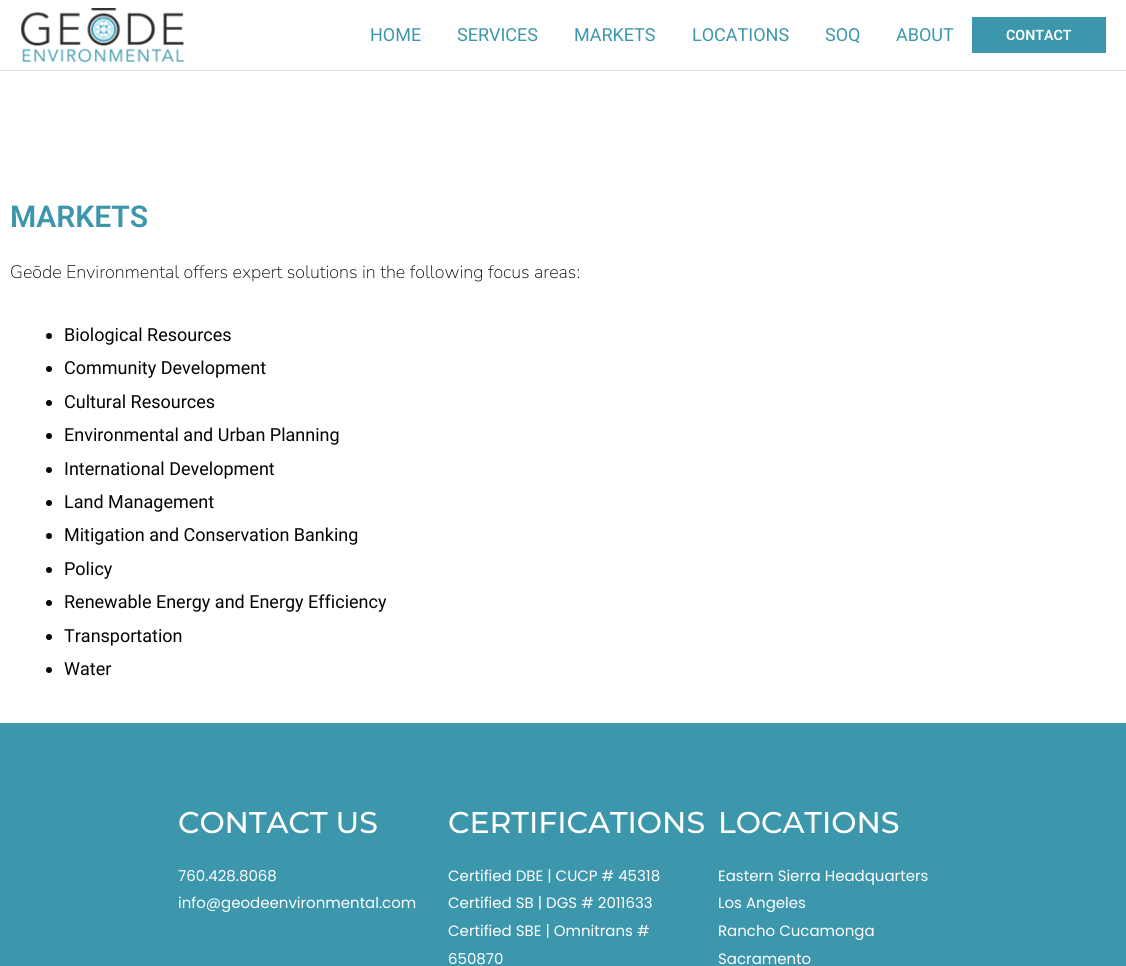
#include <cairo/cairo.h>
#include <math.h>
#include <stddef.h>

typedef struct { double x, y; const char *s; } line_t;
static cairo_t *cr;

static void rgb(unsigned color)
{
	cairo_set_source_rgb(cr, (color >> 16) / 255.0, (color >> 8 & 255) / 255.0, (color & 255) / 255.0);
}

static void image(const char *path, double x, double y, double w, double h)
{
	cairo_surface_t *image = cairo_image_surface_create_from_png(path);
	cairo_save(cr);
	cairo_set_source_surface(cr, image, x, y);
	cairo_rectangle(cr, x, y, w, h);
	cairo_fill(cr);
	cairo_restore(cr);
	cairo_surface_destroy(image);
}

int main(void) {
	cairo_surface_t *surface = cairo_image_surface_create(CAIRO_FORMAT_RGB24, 1126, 966);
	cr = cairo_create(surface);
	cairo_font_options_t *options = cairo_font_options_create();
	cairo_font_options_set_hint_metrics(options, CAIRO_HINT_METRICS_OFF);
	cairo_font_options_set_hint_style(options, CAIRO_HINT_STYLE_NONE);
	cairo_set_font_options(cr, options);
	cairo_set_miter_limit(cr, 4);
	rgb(0xffffff);
	cairo_paint(cr);
	rgb(0xdddddd);
	cairo_rectangle(cr, 0, 70, 1126, 1);
	cairo_fill(cr);
	image("img/1.png", 20, 8, 165, 55);
	rgb(0x3c97ac);
	cairo_rectangle(cr, 972, 17, 134, 36);
	cairo_fill(cr);
	rgb(0x030303);
	cairo_arc(cr, 49, 336, 3, 0, 2 * M_PI);
	cairo_fill(cr);
	cairo_arc(cr, 49, 369, 3, 0, 2 * M_PI);
	cairo_fill(cr);
	cairo_arc(cr, 49, 403, 3, 0, 2 * M_PI);
	cairo_fill(cr);
	cairo_arc(cr, 49, 436, 3, 0, 2 * M_PI);
	cairo_fill(cr);
	cairo_arc(cr, 49, 470, 3, 0, 2 * M_PI);
	cairo_fill(cr);
	cairo_arc(cr, 49, 503, 3, 0, 2 * M_PI);
	cairo_fill(cr);
	cairo_arc(cr, 49, 536, 3, 0, 2 * M_PI);
	cairo_fill(cr);
	cairo_arc(cr, 49, 570, 3, 0, 2 * M_PI);
	cairo_fill(cr);
	cairo_arc(cr, 49, 603, 3, 0, 2 * M_PI);
	cairo_fill(cr);
	cairo_arc(cr, 49, 637, 3, 0, 2 * M_PI);
	cairo_fill(cr);
	cairo_arc(cr, 49, 670, 3, 0, 2 * M_PI);
	cairo_fill(cr);
	rgb(0x3c96ac);
	cairo_rectangle(cr, 0, 723, 1126, 243);
	cairo_fill(cr);
	cairo_select_font_face(cr, "Roboto", CAIRO_FONT_SLANT_NORMAL, CAIRO_FONT_WEIGHT_NORMAL);
	cairo_set_font_size(cr, 18);
	rgb(0x3c97ac);
	{
		static const line_t items[] = {
			{370, 41, "HOME"},
			{457, 41, "SERVICES"},
			{574, 41, "MARKETS"},
			{692, 41, "LOCATIONS"},
			{825, 41, "SOQ"},
			{896, 41, "ABOUT"},
		};
		for (size_t i = 0; i < sizeof items / sizeof *items; i++) {
			cairo_move_to(cr, items[i].x, items[i].y);
			cairo_show_text(cr, items[i].s);
		}
	}
	cairo_select_font_face(cr, "Roboto SemiBold", CAIRO_FONT_SLANT_NORMAL, CAIRO_FONT_WEIGHT_NORMAL);
	cairo_set_font_size(cr, 14.25);
	rgb(0xffffff);
	cairo_move_to(cr, 1006, 40);
	cairo_show_text(cr, "CONTACT");
	cairo_set_font_size(cr, 30);
	rgb(0x3c97ac);
	cairo_move_to(cr, 10, 227);
	cairo_show_text(cr, "MARKETS");
	cairo_select_font_face(cr, "Nunito ExtraLight", CAIRO_FONT_SLANT_NORMAL, CAIRO_FONT_WEIGHT_NORMAL);
	cairo_set_font_size(cr, 18);
	rgb(0x030303);
	cairo_move_to(cr, 10, 278);
	cairo_show_text(cr, "Geōde Environmental offers expert solutions in the following focus areas:");
	cairo_select_font_face(cr, "Roboto", CAIRO_FONT_SLANT_NORMAL, CAIRO_FONT_WEIGHT_NORMAL);
	{
		static const line_t items[] = {
			{64, 341, "Biological Resources"},
			{64, 374, "Community Development"},
			{64, 408, "Cultural Resources"},
			{64, 441, "Environmental and Urban Planning"},
			{64, 475, "International Development"},
			{64, 508, "Land Management"},
			{64, 541, "Mitigation and Conservation Banking"},
			{64, 575, "Policy"},
			{64, 608, "Renewable Energy and Energy Efficiency"},
			{64, 642, "Transportation"},
			{64, 675, "Water"},
		};
		for (size_t i = 0; i < sizeof items / sizeof *items; i++) {
			cairo_move_to(cr, items[i].x, items[i].y);
			cairo_show_text(cr, items[i].s);
		}
	}
	cairo_select_font_face(cr, "Montserrat Medium", CAIRO_FONT_SLANT_NORMAL, CAIRO_FONT_WEIGHT_NORMAL);
	cairo_set_font_size(cr, 30);
	rgb(0xffffff);
	cairo_move_to(cr, 178, 833);
	cairo_show_text(cr, "CONTACT US");
	cairo_select_font_face(cr, "Poppins", CAIRO_FONT_SLANT_NORMAL, CAIRO_FONT_WEIGHT_NORMAL);
	cairo_set_font_size(cr, 15);
	cairo_move_to(cr, 178, 881);
	cairo_show_text(cr, "760.428.8068");
	cairo_move_to(cr, 178, 908);
	cairo_show_text(cr, "info@geodeenvironmental.com");
	cairo_select_font_face(cr, "Montserrat Medium", CAIRO_FONT_SLANT_NORMAL, CAIRO_FONT_WEIGHT_NORMAL);
	cairo_set_font_size(cr, 30);
	cairo_move_to(cr, 448, 833);
	cairo_show_text(cr, "CERTIFICATIONS");
	cairo_select_font_face(cr, "Poppins", CAIRO_FONT_SLANT_NORMAL, CAIRO_FONT_WEIGHT_NORMAL);
	cairo_set_font_size(cr, 15);
	{
		static const line_t items[] = {
			{448, 881, "Certified DBE | CUCP # 45318"},
			{448, 908, "Certified SB | DGS # 2011633"},
			{448, 936, "Certified SBE | Omnitrans #"},
			{448, 964, "650870"},
		};
		for (size_t i = 0; i < sizeof items / sizeof *items; i++) {
			cairo_move_to(cr, items[i].x, items[i].y);
			cairo_show_text(cr, items[i].s);
		}
	}
	cairo_select_font_face(cr, "Montserrat Medium", CAIRO_FONT_SLANT_NORMAL, CAIRO_FONT_WEIGHT_NORMAL);
	cairo_set_font_size(cr, 30);
	cairo_move_to(cr, 718, 833);
	cairo_show_text(cr, "LOCATIONS");
	cairo_select_font_face(cr, "Poppins", CAIRO_FONT_SLANT_NORMAL, CAIRO_FONT_WEIGHT_NORMAL);
	cairo_set_font_size(cr, 15);
	{
		static const line_t items[] = {
			{718, 881, "Eastern Sierra Headquarters"},
			{718, 908, "Los Angeles"},
			{718, 936, "Rancho Cucamonga"},
			{718, 964, "Sacramento"},
		};
		for (size_t i = 0; i < sizeof items / sizeof *items; i++) {
			cairo_move_to(cr, items[i].x, items[i].y);
			cairo_show_text(cr, items[i].s);
		}
	}
	cairo_surface_write_to_png(surface, "page.png");
	cairo_font_options_destroy(options);
	cairo_destroy(cr);
	cairo_surface_destroy(surface);
	return 0;
}
